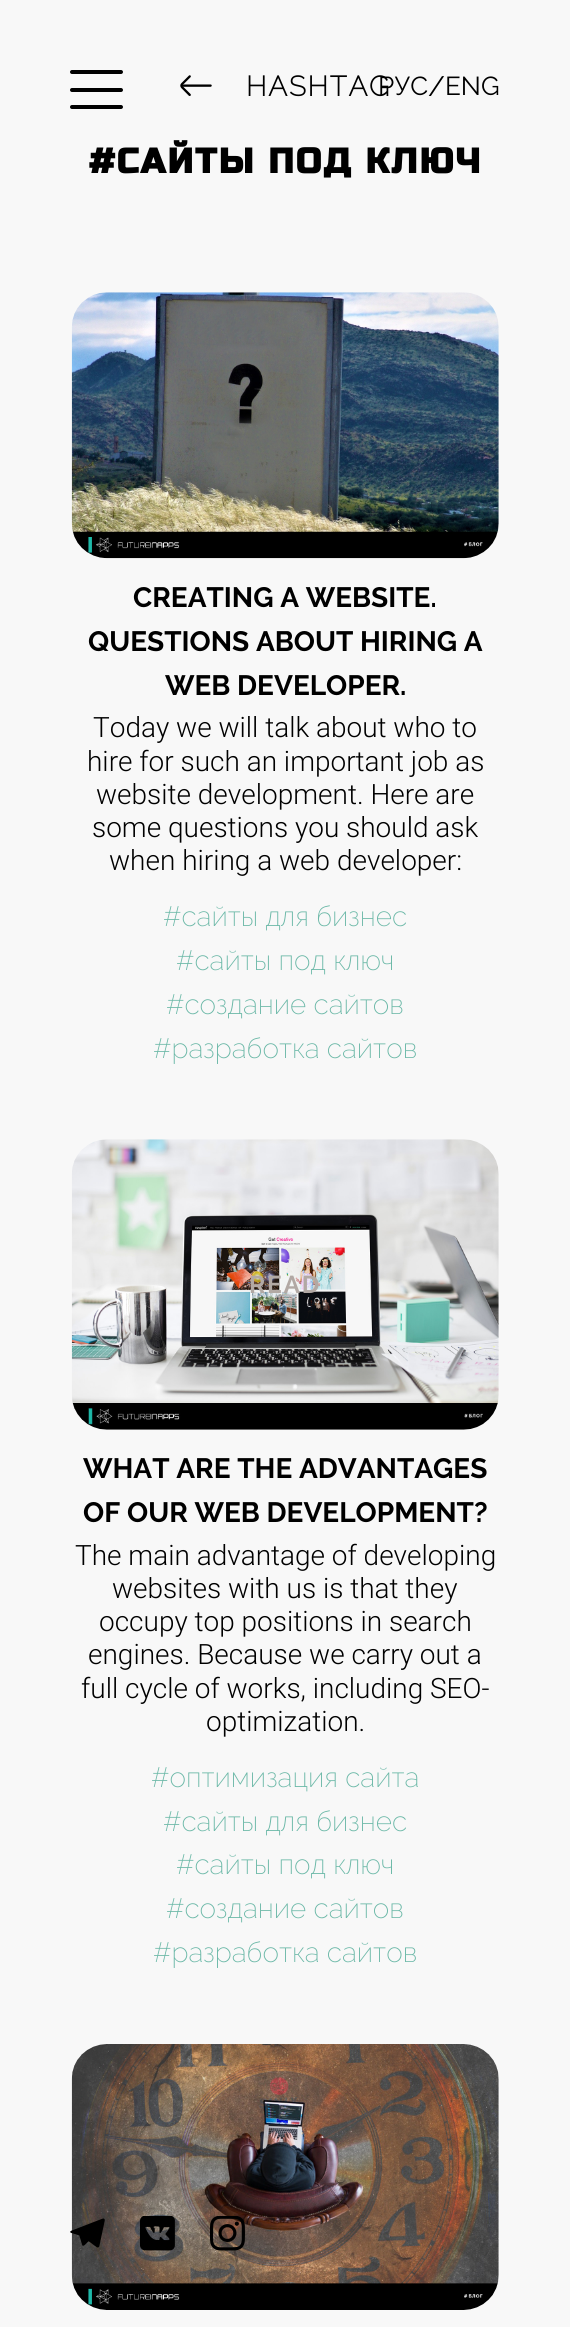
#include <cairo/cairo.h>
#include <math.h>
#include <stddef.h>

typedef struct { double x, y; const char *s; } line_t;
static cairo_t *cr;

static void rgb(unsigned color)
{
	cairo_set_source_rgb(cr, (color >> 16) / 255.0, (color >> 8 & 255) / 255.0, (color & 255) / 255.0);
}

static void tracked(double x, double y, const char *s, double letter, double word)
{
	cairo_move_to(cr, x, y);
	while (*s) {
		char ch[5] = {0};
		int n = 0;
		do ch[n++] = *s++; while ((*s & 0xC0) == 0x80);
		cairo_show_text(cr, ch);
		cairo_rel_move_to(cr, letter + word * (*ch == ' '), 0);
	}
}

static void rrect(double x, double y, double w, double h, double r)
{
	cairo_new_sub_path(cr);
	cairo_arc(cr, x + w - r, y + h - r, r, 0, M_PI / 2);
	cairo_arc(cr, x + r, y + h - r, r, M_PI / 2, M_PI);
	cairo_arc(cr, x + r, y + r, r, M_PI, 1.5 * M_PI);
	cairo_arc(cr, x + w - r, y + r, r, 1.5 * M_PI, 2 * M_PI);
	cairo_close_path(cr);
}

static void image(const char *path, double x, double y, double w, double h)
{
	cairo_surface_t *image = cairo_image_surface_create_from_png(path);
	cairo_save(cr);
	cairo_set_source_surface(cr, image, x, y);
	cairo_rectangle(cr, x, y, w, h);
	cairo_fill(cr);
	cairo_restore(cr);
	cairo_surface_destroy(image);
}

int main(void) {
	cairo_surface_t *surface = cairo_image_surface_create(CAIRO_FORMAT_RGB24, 570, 2327);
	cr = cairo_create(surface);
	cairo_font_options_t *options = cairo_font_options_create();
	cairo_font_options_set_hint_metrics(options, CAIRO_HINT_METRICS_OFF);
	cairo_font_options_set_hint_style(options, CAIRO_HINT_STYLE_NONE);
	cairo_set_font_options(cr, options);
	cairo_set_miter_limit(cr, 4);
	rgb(0xf8f8f8);
	cairo_paint(cr);
	image("img/1.png", 180, 75, 32, 21);
	image("img/2.png", 71, 292, 428, 267);
	image("img/3.png", 71, 1139, 428, 291);
	image("img/4.png", 71, 2044, 428, 266);
	rgb(0x000000);
	rrect(70, 70, 53, 4, 2);
	cairo_fill(cr);
	rrect(70, 88, 53, 4, 2);
	cairo_fill(cr);
	rrect(70, 105, 53, 4, 2);
	cairo_fill(cr);
	image("img/5.png", 70, 2218, 35, 30);
	image("img/6.png", 140, 2216, 35, 35);
	image("img/7.png", 210, 2216, 35, 35);
	cairo_select_font_face(cr, "Raleway", CAIRO_FONT_SLANT_NORMAL, CAIRO_FONT_WEIGHT_BOLD);
	cairo_set_font_size(cr, 28);
	tracked(246, 96, "HASHTAG", 1.75, 0);
	cairo_select_font_face(cr, "Russo One", CAIRO_FONT_SLANT_NORMAL, CAIRO_FONT_WEIGHT_BOLD);
	cairo_set_font_size(cr, 35);
	tracked(89, 173, "#САЙТЫ ПОД КЛЮЧ", 2.1, 0);
	cairo_select_font_face(cr, "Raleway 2", CAIRO_FONT_SLANT_NORMAL, CAIRO_FONT_WEIGHT_BOLD);
	cairo_set_font_size(cr, 28);
	{
		static const line_t items[] = {
			{133, 607, "CREATING A WEBSITE."},
			{88, 651, "QUESTIONS ABOUT HIRING A"},
			{165, 695, "WEB DEVELOPER."},
		};
		for (size_t i = 0; i < sizeof items / sizeof *items; i++) {
			cairo_move_to(cr, items[i].x, items[i].y);
			cairo_show_text(cr, items[i].s);
		}
	}
	cairo_select_font_face(cr, "Roboto Light", CAIRO_FONT_SLANT_NORMAL, CAIRO_FONT_WEIGHT_NORMAL);
	{
		static const line_t items[] = {
			{93, 737, "Today we will talk about who to"},
			{87, 771, "hire for such an important job as"},
			{96, 804, "website development. Here are"},
			{92, 837, "some questions you should ask"},
			{109, 870, "when hiring a web developer:"},
		};
		for (size_t i = 0; i < sizeof items / sizeof *items; i++) {
			cairo_move_to(cr, items[i].x, items[i].y);
			cairo_show_text(cr, items[i].s);
		}
	}
	cairo_select_font_face(cr, "Raleway ExtraLight", CAIRO_FONT_SLANT_NORMAL, CAIRO_FONT_WEIGHT_NORMAL);
	rgb(0x6bb8a7);
	{
		static const line_t items[] = {
			{163, 926, "#сайты для бизнес"},
			{176, 970, "#сайты под ключ"},
			{166, 1014, "#создание сайтов"},
			{153, 1058, "#разработка сайтов"},
		};
		for (size_t i = 0; i < sizeof items / sizeof *items; i++) {
			cairo_move_to(cr, items[i].x, items[i].y);
			cairo_show_text(cr, items[i].s);
		}
	}
	cairo_select_font_face(cr, "Raleway 2", CAIRO_FONT_SLANT_NORMAL, CAIRO_FONT_WEIGHT_BOLD);
	cairo_set_font_size(cr, 24.5);
	rgb(0xb2a9a4);
	tracked(249, 1293, "READ", 1.75, 0);
	cairo_set_font_size(cr, 28);
	rgb(0x000000);
	cairo_move_to(cr, 83, 1478);
	cairo_show_text(cr, "WHAT ARE THE ADVANTAGES");
	cairo_move_to(cr, 83, 1522);
	cairo_show_text(cr, "OF OUR WEB DEVELOPMENT?");
	cairo_select_font_face(cr, "Roboto Light", CAIRO_FONT_SLANT_NORMAL, CAIRO_FONT_WEIGHT_NORMAL);
	{
		static const line_t items[] = {
			{75, 1565, "The main advantage of developing"},
			{112, 1598, "websites with us is that they"},
			{99, 1631, "occupy top positions in search"},
			{88, 1664, "engines. Because we carry out a"},
			{81, 1698, "full cycle of works, including SEO-"},
			{206, 1731, "optimization."},
		};
		for (size_t i = 0; i < sizeof items / sizeof *items; i++) {
			cairo_move_to(cr, items[i].x, items[i].y);
			cairo_show_text(cr, items[i].s);
		}
	}
	cairo_select_font_face(cr, "Raleway ExtraLight", CAIRO_FONT_SLANT_NORMAL, CAIRO_FONT_WEIGHT_NORMAL);
	rgb(0x6bb8a7);
	{
		static const line_t items[] = {
			{151, 1787, "#оптимизация сайта"},
			{163, 1831, "#сайты для бизнес"},
			{176, 1874, "#сайты под ключ"},
			{166, 1918, "#создание сайтов"},
			{153, 1962, "#разработка сайтов"},
		};
		for (size_t i = 0; i < sizeof items / sizeof *items; i++) {
			cairo_move_to(cr, items[i].x, items[i].y);
			cairo_show_text(cr, items[i].s);
		}
	}
	cairo_select_font_face(cr, "Raleway", CAIRO_FONT_SLANT_NORMAL, CAIRO_FONT_WEIGHT_NORMAL);
	cairo_set_font_size(cr, 26);
	rgb(0x000000);
	cairo_move_to(cr, 378, 95);
	cairo_show_text(cr, "РУС");
	cairo_set_font_size(cr, 28);
	cairo_move_to(cr, 428, 96);
	cairo_show_text(cr, "/");
	cairo_set_font_size(cr, 26);
	cairo_move_to(cr, 445, 95);
	cairo_show_text(cr, "ENG");
	cairo_surface_write_to_png(surface, "page.png");
	cairo_font_options_destroy(options);
	cairo_destroy(cr);
	cairo_surface_destroy(surface);
	return 0;
}
